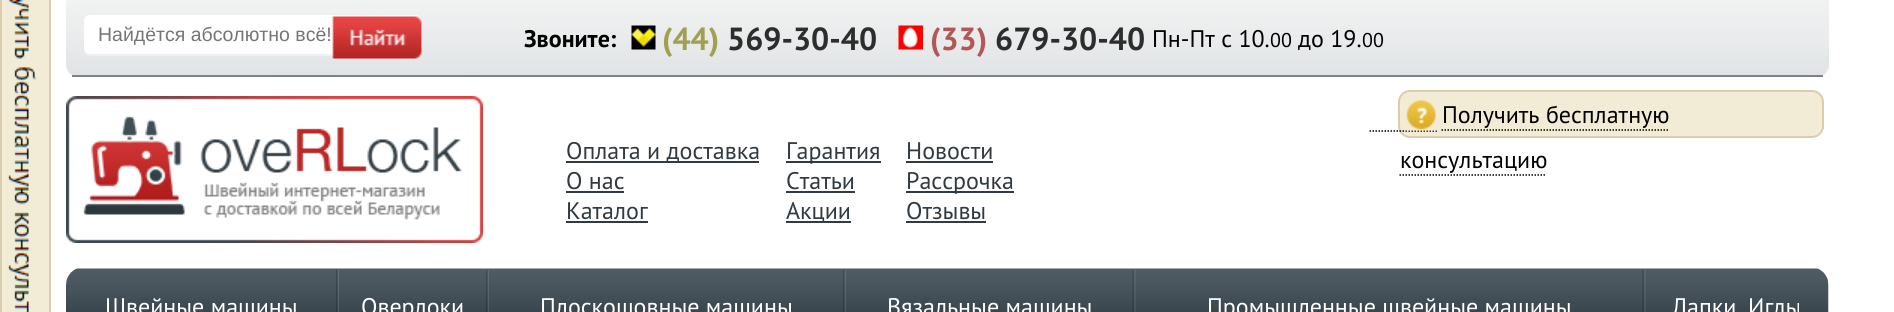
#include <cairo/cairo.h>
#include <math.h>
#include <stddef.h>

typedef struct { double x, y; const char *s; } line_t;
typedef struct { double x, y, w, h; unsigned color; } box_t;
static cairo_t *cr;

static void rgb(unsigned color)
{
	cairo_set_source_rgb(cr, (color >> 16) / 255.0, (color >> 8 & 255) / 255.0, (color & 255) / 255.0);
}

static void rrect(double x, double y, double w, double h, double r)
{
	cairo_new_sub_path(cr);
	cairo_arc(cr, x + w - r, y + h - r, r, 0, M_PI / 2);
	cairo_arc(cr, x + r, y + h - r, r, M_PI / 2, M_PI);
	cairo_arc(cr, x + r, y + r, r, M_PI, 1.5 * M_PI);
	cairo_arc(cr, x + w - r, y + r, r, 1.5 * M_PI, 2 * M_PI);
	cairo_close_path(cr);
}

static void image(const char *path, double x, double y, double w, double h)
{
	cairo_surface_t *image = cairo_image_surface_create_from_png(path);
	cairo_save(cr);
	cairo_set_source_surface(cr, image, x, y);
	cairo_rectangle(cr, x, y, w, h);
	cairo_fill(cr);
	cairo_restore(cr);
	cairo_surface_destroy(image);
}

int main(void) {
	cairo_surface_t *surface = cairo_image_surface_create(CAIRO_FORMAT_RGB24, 1894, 312);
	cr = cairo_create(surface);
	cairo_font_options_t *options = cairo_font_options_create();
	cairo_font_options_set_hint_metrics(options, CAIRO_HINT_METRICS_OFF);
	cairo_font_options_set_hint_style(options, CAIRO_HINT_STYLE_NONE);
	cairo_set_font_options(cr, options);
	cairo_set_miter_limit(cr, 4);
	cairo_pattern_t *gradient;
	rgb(0xffffff);
	cairo_paint(cr);
	rgb(0xf2ecd7);
	cairo_rectangle(cr, 1, -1, 49, 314);
	cairo_fill_preserve(cr);
	rgb(0xdaccae);
	cairo_stroke(cr);
	image("img/1.png", 8, 0, 29, 312);
	cairo_save(cr);
	cairo_new_path(cr);
	cairo_move_to(cr, 66, 0);
	cairo_line_to(cr, 1829, 0);
	cairo_line_to(cr, 1829, 65);
	cairo_curve_to(cr, 1829, 71.5, 1823.5, 77, 1817, 77);
	cairo_line_to(cr, 78, 77);
	cairo_curve_to(cr, 71.5, 77, 66, 71.5, 66, 65);
	cairo_close_path(cr);
	cairo_clip(cr);
	gradient = cairo_pattern_create_linear(947, 0, 947, 75);
	cairo_pattern_add_color_stop_rgba(gradient, 0, 0.945, 0.949, 0.949, 1);
	cairo_pattern_add_color_stop_rgba(gradient, 1, 0.882, 0.894, 0.902, 1);
	cairo_set_source(cr, gradient);
	cairo_pattern_destroy(gradient);
	cairo_rectangle(cr, 66, 0, 1763, 75);
	cairo_fill(cr);
	cairo_restore(cr);
	rgb(0x7e8081);
	cairo_rectangle(cr, 72, 75, 1751, 2);
	cairo_fill(cr);
	cairo_set_source_rgba(cr, 1, 1, 1, 0.35);
	cairo_new_path(cr);
	cairo_move_to(cr, 84, 48);
	cairo_line_to(cr, 84, 50);
	cairo_curve_to(cr, 84, 53, 87, 56, 90, 56);
	cairo_line_to(cr, 416, 56);
	cairo_curve_to(cr, 419, 56, 422, 53, 422, 50);
	cairo_line_to(cr, 422, 23);
	cairo_line_to(cr, 421, 21);
	cairo_line_to(cr, 422, 48);
	cairo_curve_to(cr, 422, 51, 419, 54, 416, 54);
	cairo_line_to(cr, 90, 54);
	cairo_curve_to(cr, 87, 54, 84, 51, 84, 48);
	cairo_close_path(cr);
	cairo_fill(cr);
	rgb(0xffffff);
	rrect(84, 15, 338, 39, 6);
	cairo_fill(cr);
	image("img/2.png", 332, 16, 90, 43);
	image("img/3.png", 631, 25, 25, 25);
	image("img/4.png", 898, 25, 25, 25);
	rgb(0xf2ecd7);
	rrect(1399, 91, 424, 46, 11);
	cairo_fill_preserve(cr);
	rgb(0xdaccae);
	cairo_stroke(cr);
	cairo_new_path(cr);
	cairo_move_to(cr, 1369.5, 131);
	cairo_line_to(cr, 1437, 131);
	rgb(0x010101);
	cairo_set_line_width(cr, 1.5);
	cairo_set_dash(cr, (double[]){1.5, 1.5}, 2, 0);
	cairo_stroke(cr);
	cairo_new_path(cr);
	cairo_move_to(cr, 1441.5, 130);
	cairo_line_to(cr, 1669.5, 130);
	cairo_stroke(cr);
	cairo_new_path(cr);
	cairo_move_to(cr, 1399.5, 175);
	cairo_line_to(cr, 1546.5, 175);
	cairo_stroke(cr);
	image("img/5.png", 1405, 100, 32, 31);
	image("img/6.png", 66, 96, 417, 147);
	{
		static const box_t items[] = {
			{566, 161, 193, 2, 0x313a40},
			{566, 191, 58, 2, 0x313a40},
			{566, 221, 82, 2, 0x313a40},
			{786, 161, 95, 2, 0x313a40},
			{786, 191, 69, 2, 0x313a40},
			{786, 221, 65, 2, 0x313a40},
			{906, 161, 87, 2, 0x313a40},
			{906, 191, 108, 2, 0x313a40},
			{906, 221, 80, 2, 0x313a40},
		};
		for (size_t i = 0; i < sizeof items / sizeof *items; i++) {
			rgb(items[i].color);
			cairo_rectangle(cr, items[i].x, items[i].y, items[i].w, items[i].h);
			cairo_fill(cr);
		}
	}
	image("img/7.png", 66, 268, 1763, 44);
	image("img/8.png", 336, 270, 3, 42);
	image("img/8.png", 486, 270, 3, 42);
	image("img/9.png", 843, 270, 3, 42);
	image("img/10.png", 1132, 270, 4, 42);
	image("img/10.png", 1642, 270, 4, 42);
	cairo_select_font_face(cr, "Liberation Sans", CAIRO_FONT_SLANT_NORMAL, CAIRO_FONT_WEIGHT_NORMAL);
	cairo_set_font_size(cr, 19.5);
	rgb(0x757575);
	cairo_move_to(cr, 98, 41);
	cairo_show_text(cr, "Найдётся абсолютно всё!");
	cairo_select_font_face(cr, "PT Sans", CAIRO_FONT_SLANT_NORMAL, CAIRO_FONT_WEIGHT_BOLD);
	cairo_set_font_size(cr, 24);
	rgb(0x000000);
	cairo_move_to(cr, 524, 47);
	cairo_show_text(cr, "Звоните:");
	cairo_set_font_size(cr, 32);
	rgb(0xa0a050);
	cairo_move_to(cr, 662, 50);
	cairo_show_text(cr, "(44)");
	rgb(0x2d2d2d);
	cairo_move_to(cr, 727, 50);
	cairo_show_text(cr, "569-30-40");
	rgb(0xb35656);
	cairo_move_to(cr, 930, 50);
	cairo_show_text(cr, "(33)");
	rgb(0x2d2d2d);
	cairo_move_to(cr, 995, 50);
	cairo_show_text(cr, "679-30-40");
	cairo_select_font_face(cr, "PT Sans", CAIRO_FONT_SLANT_NORMAL, CAIRO_FONT_WEIGHT_NORMAL);
	cairo_set_font_size(cr, 24);
	rgb(0x000000);
	cairo_move_to(cr, 1152, 47);
	cairo_show_text(cr, "Пн-Пт с 10.");
	cairo_set_font_size(cr, 20);
	cairo_move_to(cr, 1270, 47);
	cairo_show_text(cr, "00");
	cairo_set_font_size(cr, 24);
	cairo_move_to(cr, 1298, 47);
	cairo_show_text(cr, "до 19.");
	cairo_set_font_size(cr, 20);
	cairo_move_to(cr, 1362, 47);
	cairo_show_text(cr, "00");
	cairo_set_font_size(cr, 24);
	cairo_move_to(cr, 1442, 123);
	cairo_show_text(cr, "Получить бесплатную");
	cairo_move_to(cr, 1400, 168);
	cairo_show_text(cr, "консультацию");
	rgb(0x313a40);
	{
		static const line_t items[] = {
			{566, 159, "Оплата и доставка"},
			{566, 189, "О нас"},
			{566, 219, "Каталог"},
			{786, 159, "Гарантия"},
			{786, 189, "Статьи"},
			{786, 219, "Акции"},
			{906, 159, "Новости"},
			{906, 189, "Рассрочка"},
			{906, 219, "Отзывы"},
		};
		for (size_t i = 0; i < sizeof items / sizeof *items; i++) {
			cairo_move_to(cr, items[i].x, items[i].y);
			cairo_show_text(cr, items[i].s);
		}
	}
	rgb(0xffffff);
	{
		static const line_t items[] = {
			{105, 315, "Швейные машины"},
			{361, 315, "Оверлоки"},
			{540, 315, "Плоскошовные машины"},
			{887, 315, "Вязальные машины"},
			{1207, 315, "Промышленные швейные машины"},
			{1672, 315, "Лапки, Иглы"},
		};
		for (size_t i = 0; i < sizeof items / sizeof *items; i++) {
			cairo_move_to(cr, items[i].x, items[i].y);
			cairo_show_text(cr, items[i].s);
		}
	}
	cairo_surface_write_to_png(surface, "page.png");
	cairo_font_options_destroy(options);
	cairo_destroy(cr);
	cairo_surface_destroy(surface);
	return 0;
}
